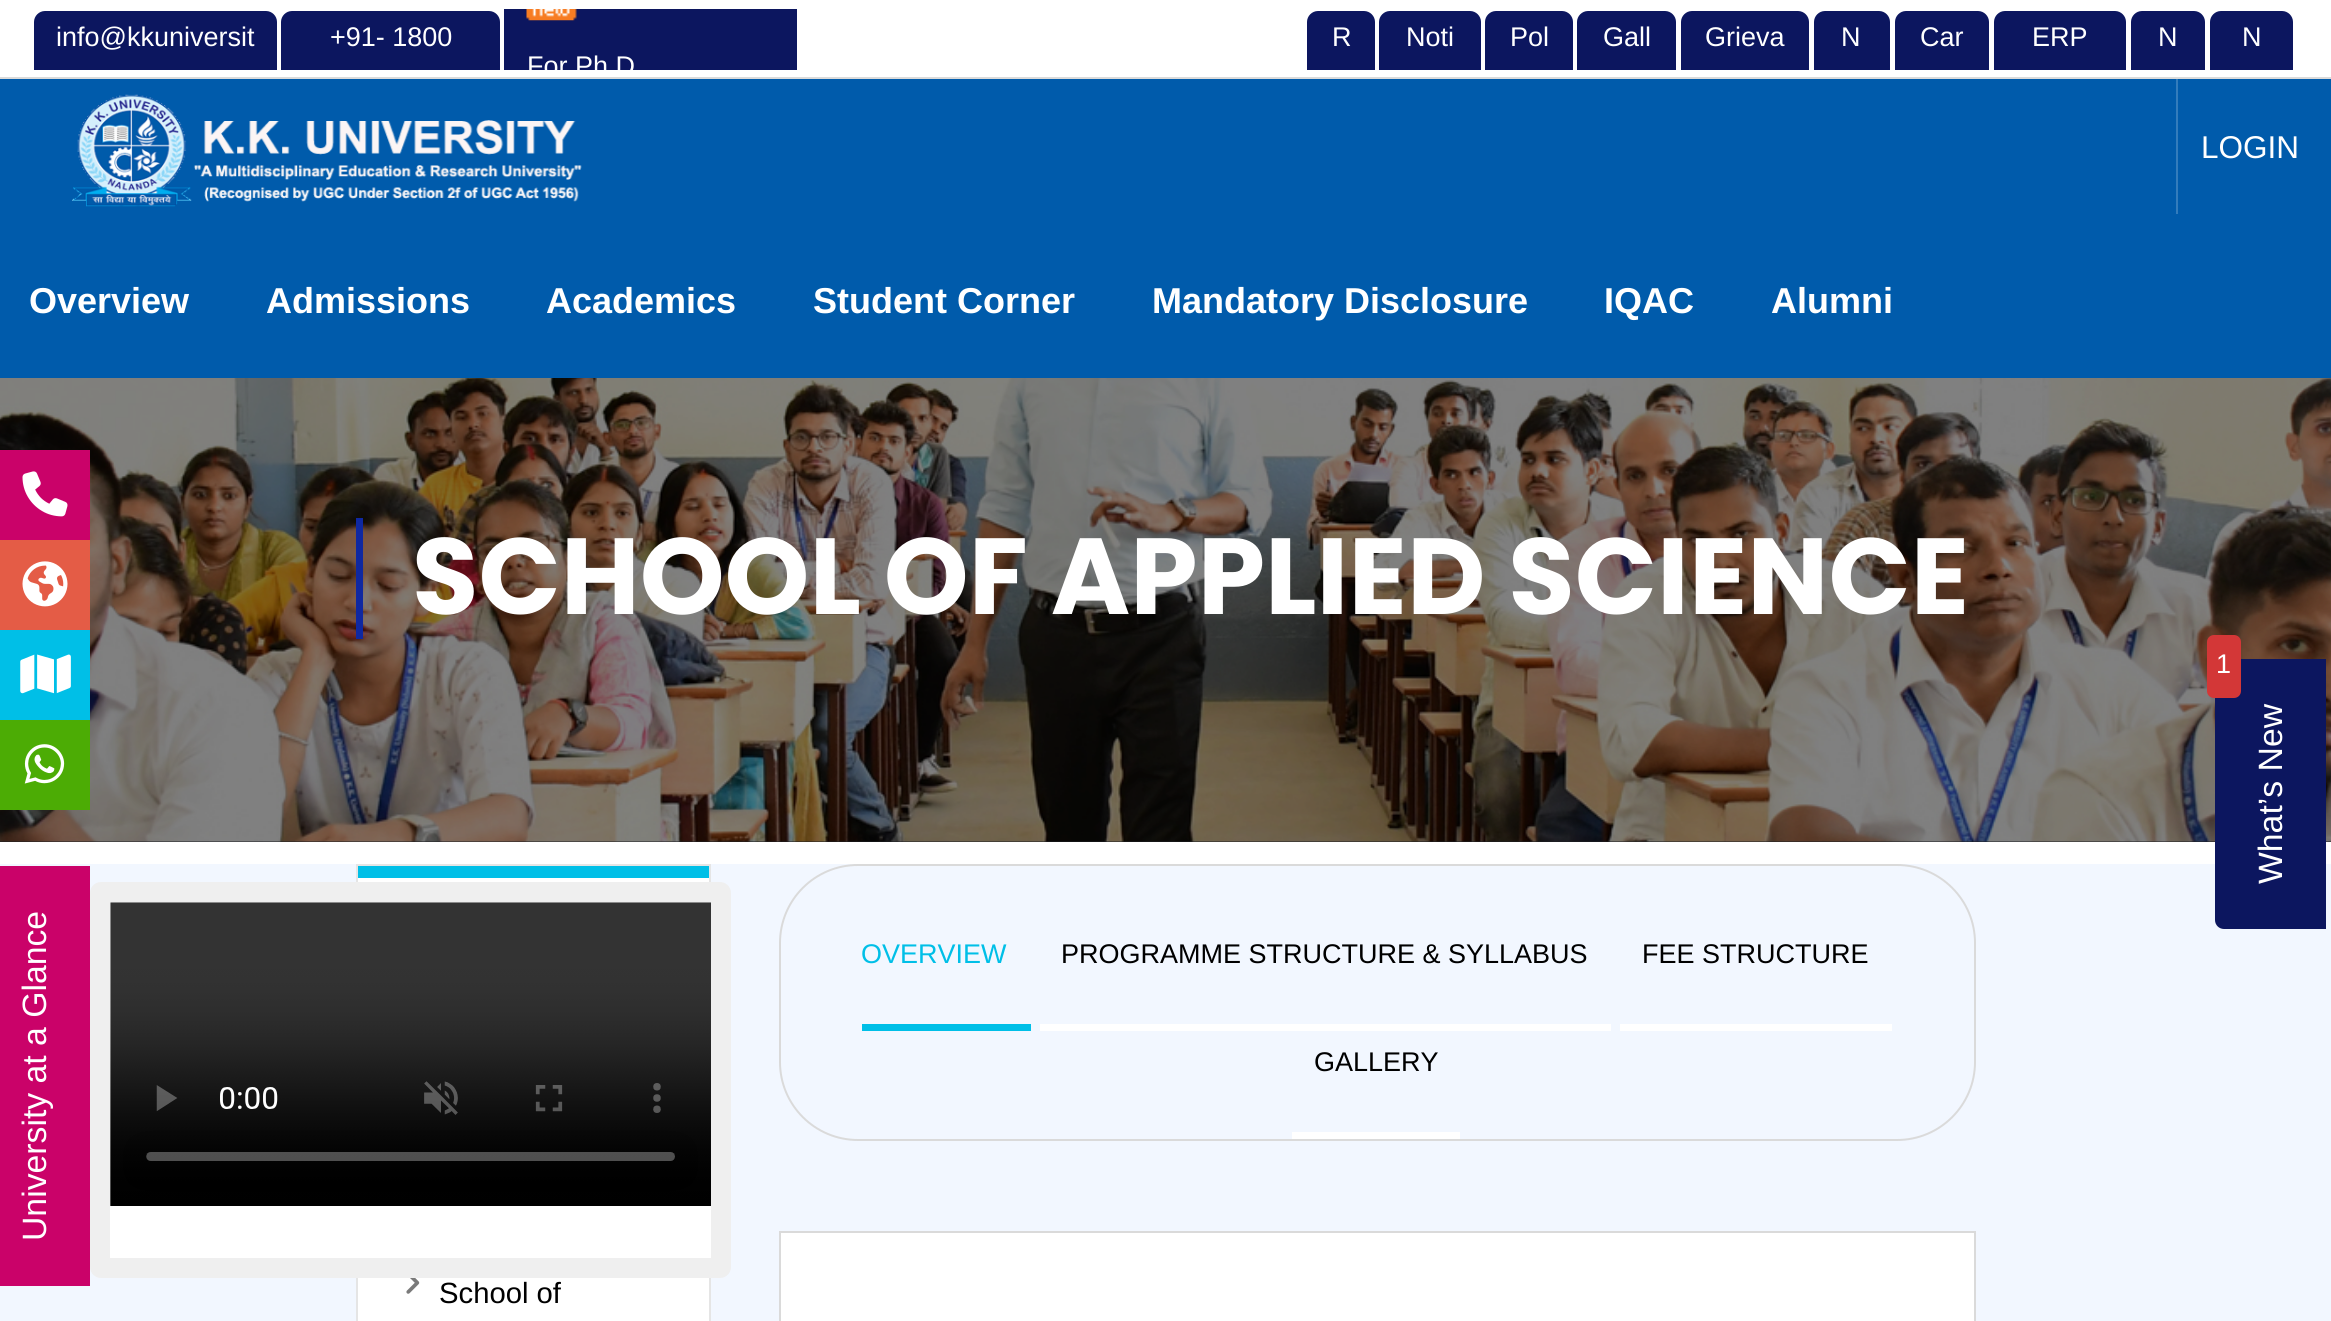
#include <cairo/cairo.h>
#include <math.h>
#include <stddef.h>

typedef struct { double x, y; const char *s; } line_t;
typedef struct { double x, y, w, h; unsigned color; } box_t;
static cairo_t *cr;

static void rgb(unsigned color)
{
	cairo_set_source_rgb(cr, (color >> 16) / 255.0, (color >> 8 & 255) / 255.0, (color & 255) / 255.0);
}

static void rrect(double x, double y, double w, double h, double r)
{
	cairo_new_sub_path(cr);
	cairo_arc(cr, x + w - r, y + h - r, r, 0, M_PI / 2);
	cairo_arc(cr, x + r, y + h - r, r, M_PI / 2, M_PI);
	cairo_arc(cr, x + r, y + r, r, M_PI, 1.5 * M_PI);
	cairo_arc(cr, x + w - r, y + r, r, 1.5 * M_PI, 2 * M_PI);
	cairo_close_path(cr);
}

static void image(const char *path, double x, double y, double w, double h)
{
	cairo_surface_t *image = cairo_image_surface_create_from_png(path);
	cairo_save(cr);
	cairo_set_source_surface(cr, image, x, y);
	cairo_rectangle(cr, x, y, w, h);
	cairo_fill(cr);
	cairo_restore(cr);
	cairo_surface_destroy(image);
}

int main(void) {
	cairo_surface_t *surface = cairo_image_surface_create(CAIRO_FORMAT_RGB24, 2331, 1321);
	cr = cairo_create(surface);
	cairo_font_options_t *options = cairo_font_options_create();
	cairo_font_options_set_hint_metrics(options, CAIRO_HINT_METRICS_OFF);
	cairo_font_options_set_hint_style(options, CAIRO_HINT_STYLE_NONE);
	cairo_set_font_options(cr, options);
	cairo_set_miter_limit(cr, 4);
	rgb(0xffffff);
	cairo_paint(cr);
	rgb(0xdadada);
	cairo_rectangle(cr, 0, 77, 2331, 2);
	cairo_fill(cr);
	rgb(0x0c165f);
	cairo_new_path(cr);
	cairo_move_to(cr, 45, 11);
	cairo_line_to(cr, 266, 11);
	cairo_curve_to(cr, 272, 11, 277, 16, 277, 22);
	cairo_line_to(cr, 277, 70);
	cairo_line_to(cr, 34, 70);
	cairo_line_to(cr, 34, 22);
	cairo_curve_to(cr, 34, 16, 39, 11, 45, 11);
	cairo_close_path(cr);
	cairo_fill(cr);
	cairo_new_path(cr);
	cairo_move_to(cr, 292, 11);
	cairo_line_to(cr, 489, 11);
	cairo_curve_to(cr, 495, 11, 500, 16, 500, 22);
	cairo_line_to(cr, 500, 70);
	cairo_line_to(cr, 281, 70);
	cairo_line_to(cr, 281, 22);
	cairo_curve_to(cr, 281, 16, 286, 11, 292, 11);
	cairo_close_path(cr);
	cairo_fill(cr);
	cairo_new_path(cr);
	cairo_move_to(cr, 1318, 11);
	cairo_line_to(cr, 1364, 11);
	cairo_curve_to(cr, 1370, 11, 1375, 16, 1375, 22);
	cairo_line_to(cr, 1375, 70);
	cairo_line_to(cr, 1307, 70);
	cairo_line_to(cr, 1307, 22);
	cairo_curve_to(cr, 1307, 16, 1312, 11, 1318, 11);
	cairo_close_path(cr);
	cairo_fill(cr);
	cairo_new_path(cr);
	cairo_move_to(cr, 1390, 11);
	cairo_line_to(cr, 1470, 11);
	cairo_curve_to(cr, 1476, 11, 1481, 16, 1481, 22);
	cairo_line_to(cr, 1481, 70);
	cairo_line_to(cr, 1379, 70);
	cairo_line_to(cr, 1379, 22);
	cairo_curve_to(cr, 1379, 16, 1384, 11, 1390, 11);
	cairo_close_path(cr);
	cairo_fill(cr);
	cairo_new_path(cr);
	cairo_move_to(cr, 1496, 11);
	cairo_line_to(cr, 1562, 11);
	cairo_curve_to(cr, 1568, 11, 1573, 16, 1573, 22);
	cairo_line_to(cr, 1573, 70);
	cairo_line_to(cr, 1485, 70);
	cairo_line_to(cr, 1485, 22);
	cairo_curve_to(cr, 1485, 16, 1490, 11, 1496, 11);
	cairo_close_path(cr);
	cairo_fill(cr);
	cairo_new_path(cr);
	cairo_move_to(cr, 1588, 11);
	cairo_line_to(cr, 1665, 11);
	cairo_curve_to(cr, 1671, 11, 1676, 16, 1676, 22);
	cairo_line_to(cr, 1676, 70);
	cairo_line_to(cr, 1577, 70);
	cairo_line_to(cr, 1577, 22);
	cairo_curve_to(cr, 1577, 16, 1582, 11, 1588, 11);
	cairo_close_path(cr);
	cairo_fill(cr);
	cairo_new_path(cr);
	cairo_move_to(cr, 1692, 11);
	cairo_line_to(cr, 1798, 11);
	cairo_curve_to(cr, 1804, 11, 1809, 16, 1809, 22);
	cairo_line_to(cr, 1809, 70);
	cairo_line_to(cr, 1681, 70);
	cairo_line_to(cr, 1681, 22);
	cairo_curve_to(cr, 1681, 16, 1686, 11, 1692, 11);
	cairo_close_path(cr);
	cairo_fill(cr);
	cairo_new_path(cr);
	cairo_move_to(cr, 1825, 11);
	cairo_line_to(cr, 1879, 11);
	cairo_curve_to(cr, 1885, 11, 1890, 16, 1890, 22);
	cairo_line_to(cr, 1890, 70);
	cairo_line_to(cr, 1814, 70);
	cairo_line_to(cr, 1814, 22);
	cairo_curve_to(cr, 1814, 16, 1819, 11, 1825, 11);
	cairo_close_path(cr);
	cairo_fill(cr);
	cairo_new_path(cr);
	cairo_move_to(cr, 1906, 11);
	cairo_line_to(cr, 1978, 11);
	cairo_curve_to(cr, 1984, 11, 1989, 16, 1989, 22);
	cairo_line_to(cr, 1989, 70);
	cairo_line_to(cr, 1895, 70);
	cairo_line_to(cr, 1895, 22);
	cairo_curve_to(cr, 1895, 16, 1900, 11, 1906, 11);
	cairo_close_path(cr);
	cairo_fill(cr);
	cairo_new_path(cr);
	cairo_move_to(cr, 2005, 11);
	cairo_line_to(cr, 2115, 11);
	cairo_curve_to(cr, 2121, 11, 2126, 16, 2126, 22);
	cairo_line_to(cr, 2126, 70);
	cairo_line_to(cr, 1994, 70);
	cairo_line_to(cr, 1994, 22);
	cairo_curve_to(cr, 1994, 16, 1999, 11, 2005, 11);
	cairo_close_path(cr);
	cairo_fill(cr);
	cairo_new_path(cr);
	cairo_move_to(cr, 2142, 11);
	cairo_line_to(cr, 2194, 11);
	cairo_curve_to(cr, 2200, 11, 2205, 16, 2205, 22);
	cairo_line_to(cr, 2205, 70);
	cairo_line_to(cr, 2131, 70);
	cairo_line_to(cr, 2131, 22);
	cairo_curve_to(cr, 2131, 16, 2136, 11, 2142, 11);
	cairo_close_path(cr);
	cairo_fill(cr);
	cairo_new_path(cr);
	cairo_move_to(cr, 2221, 11);
	cairo_line_to(cr, 2282, 11);
	cairo_curve_to(cr, 2288, 11, 2293, 16, 2293, 22);
	cairo_line_to(cr, 2293, 70);
	cairo_line_to(cr, 2210, 70);
	cairo_line_to(cr, 2210, 22);
	cairo_curve_to(cr, 2210, 16, 2215, 11, 2221, 11);
	cairo_close_path(cr);
	cairo_fill(cr);
	cairo_rectangle(cr, 504, 9, 293, 61);
	cairo_fill(cr);
	image("img/1.png", 526, 9, 51, 12);
	rgb(0x005bab);
	cairo_rectangle(cr, 0, 79, 2331, 299);
	cairo_fill(cr);
	image("img/2.png", 72, 94, 510, 113);
	rgb(0x337cbc);
	cairo_rectangle(cr, 2176, 79, 2, 135);
	cairo_fill(cr);
	rgb(0x1c1f22);
	cairo_rectangle(cr, 0, 841, 2331, 1);
	cairo_fill(cr);
	image("img/3.png", 0, 378, 2331, 464);
	rgb(0x0f28a1);
	cairo_rectangle(cr, 356, 518, 7, 121);
	cairo_fill(cr);
	rgb(0xca0269);
	cairo_rectangle(cr, 0, 450, 90, 90);
	cairo_fill(cr);
	image("img/4.png", 22, 471, 46, 46);
	rgb(0xe45c46);
	cairo_rectangle(cr, 0, 540, 90, 90);
	cairo_fill(cr);
	image("img/5.png", 22, 561, 46, 46);
	rgb(0x00bfe7);
	cairo_rectangle(cr, 0, 630, 90, 90);
	cairo_fill(cr);
	image("img/6.png", 20, 654, 51, 40);
	rgb(0x4cac05);
	cairo_rectangle(cr, 0, 720, 90, 90);
	cairo_fill(cr);
	image("img/7.png", 24, 744, 41, 40);
	rgb(0xf2f7ff);
	cairo_rectangle(cr, 0, 864, 2331, 457);
	cairo_fill(cr);
	rgb(0x0c165f);
	cairo_new_path(cr);
	cairo_move_to(cr, 2215, 920);
	cairo_line_to(cr, 2215, 668);
	cairo_curve_to(cr, 2215, 663, 2219, 659, 2224, 659);
	cairo_line_to(cr, 2326, 659);
	cairo_line_to(cr, 2326, 929);
	cairo_line_to(cr, 2224, 929);
	cairo_curve_to(cr, 2219, 929, 2215, 925, 2215, 920);
	cairo_close_path(cr);
	cairo_fill(cr);
	rgb(0xd33737);
	rrect(2207, 635, 34, 63, 7);
	cairo_fill(cr);
	rgb(0xca0269);
	cairo_new_path(cr);
	cairo_move_to(cr, -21, 1277);
	cairo_line_to(cr, -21, 875);
	cairo_curve_to(cr, -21, 870, -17, 866, -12, 866);
	cairo_line_to(cr, 90, 866);
	cairo_line_to(cr, 90, 1286);
	cairo_line_to(cr, -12, 1286);
	cairo_curve_to(cr, -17, 1286, -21, 1282, -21, 1277);
	cairo_close_path(cr);
	cairo_fill(cr);
	rgb(0xffffff);
	cairo_rectangle(cr, 358, 878, 351, 443);
	cairo_fill(cr);
	cairo_rectangle(cr, 357, 865, 353, 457);
	rgb(0xe5e5e5);
	cairo_stroke(cr);
	rgb(0xffffff);
	rrect(100, 892, 621, 376, 1);
	cairo_fill_preserve(cr);
	rgb(0xefefef);
	cairo_set_line_width(cr, 20);
	cairo_stroke(cr);
	image("img/8.png", 110, 902, 601, 304);
	rrect(780, 865, 1195, 275, 78);
	rgb(0xdadada);
	cairo_set_line_width(cr, 2);
	cairo_stroke(cr);
	{
		static const box_t items[] = {
			{862, 1024, 169, 7, 0x00bfe7},
			{1040, 1024, 571, 7, 0xffffff},
			{1620, 1024, 272, 7, 0xffffff},
			{1292, 1132, 168, 7, 0xffffff},
		};
		for (size_t i = 0; i < sizeof items / sizeof *items; i++) {
			rgb(items[i].color);
			cairo_rectangle(cr, items[i].x, items[i].y, items[i].w, items[i].h);
			cairo_fill(cr);
		}
	}
	cairo_rectangle(cr, 780, 1232, 1195, 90);
	cairo_fill_preserve(cr);
	rgb(0xdadada);
	cairo_stroke(cr);
	rgb(0x00bfe7);
	cairo_rectangle(cr, 358, 866, 351, 12);
	cairo_fill(cr);
	image("img/9.png", 406, 1278, 14, 16);
	cairo_select_font_face(cr, "Liberation Sans", CAIRO_FONT_SLANT_NORMAL, CAIRO_FONT_WEIGHT_NORMAL);
	cairo_set_font_size(cr, 27);
	rgb(0xffffff);
	{
		static const line_t items[] = {
			{56, 46, "info@kkuniversit"},
			{330, 46, "+91- 1800"},
			{1332, 46, "R"},
			{1406, 46, "Noti"},
			{1510, 46, "Pol"},
			{1603, 46, "Gall"},
			{1705, 46, "Grieva"},
			{1841, 46, "N"},
			{1920, 46, "Car"},
			{2032, 46, "ERP"},
			{2158, 46, "N"},
			{2242, 46, "N"},
		};
		for (size_t i = 0; i < sizeof items / sizeof *items; i++) {
			cairo_move_to(cr, items[i].x, items[i].y);
			cairo_show_text(cr, items[i].s);
		}
	}
	cairo_save(cr);
	cairo_rectangle(cr, 34, 9, 2263, 61);
	cairo_clip(cr);
	cairo_move_to(cr, 527, 75);
	cairo_show_text(cr, "For Ph.D");
	cairo_restore(cr);
	cairo_set_font_size(cr, 31.5);
	cairo_move_to(cr, 2201, 158);
	cairo_show_text(cr, "LOGIN");
	cairo_select_font_face(cr, "Liberation Sans", CAIRO_FONT_SLANT_NORMAL, CAIRO_FONT_WEIGHT_BOLD);
	cairo_set_font_size(cr, 36);
	{
		static const line_t items[] = {
			{29, 313, "Overview"},
			{266, 313, "Admissions"},
			{546, 313, "Academics"},
			{813, 313, "Student Corner"},
			{1152, 313, "Mandatory Disclosure"},
			{1604, 313, "IQAC"},
			{1771, 313, "Alumni"},
		};
		for (size_t i = 0; i < sizeof items / sizeof *items; i++) {
			cairo_move_to(cr, items[i].x, items[i].y);
			cairo_show_text(cr, items[i].s);
		}
	}
	cairo_select_font_face(cr, "Poppins", CAIRO_FONT_SLANT_NORMAL, CAIRO_FONT_WEIGHT_BOLD);
	cairo_set_font_size(cr, 108);
	cairo_move_to(cr, 412, 614);
	cairo_show_text(cr, "SCHOOL OF APPLIED SCIENCE");
	cairo_select_font_face(cr, "Liberation Sans", CAIRO_FONT_SLANT_NORMAL, CAIRO_FONT_WEIGHT_NORMAL);
	cairo_set_font_size(cr, 27);
	cairo_move_to(cr, 2216, 673);
	cairo_show_text(cr, "1");
	cairo_set_font_size(cr, 33.75);
	cairo_save(cr);
	cairo_translate(cr, 2282, 884);
	cairo_rotate(cr, -90 * M_PI / 180);
	cairo_move_to(cr, 0, 0);
	cairo_show_text(cr, "What’s New");
	cairo_restore(cr);
	cairo_save(cr);
	cairo_translate(cr, 46, 1241);
	cairo_rotate(cr, -90 * M_PI / 180);
	cairo_move_to(cr, 0, 0);
	cairo_show_text(cr, "University at a Glance");
	cairo_restore(cr);
	cairo_set_font_size(cr, 27);
	rgb(0x00bfe7);
	cairo_move_to(cr, 861, 963);
	cairo_show_text(cr, "OVERVIEW");
	rgb(0x000000);
	{
		static const line_t items[] = {
			{1061, 963, "PROGRAMME STRUCTURE & SYLLABUS"},
			{1642, 963, "FEE STRUCTURE"},
			{1314, 1071, "GALLERY"},
		};
		for (size_t i = 0; i < sizeof items / sizeof *items; i++) {
			cairo_move_to(cr, items[i].x, items[i].y);
			cairo_show_text(cr, items[i].s);
		}
	}
	cairo_set_font_size(cr, 29.25);
	cairo_move_to(cr, 439, 1303);
	cairo_show_text(cr, "School of");
	cairo_surface_write_to_png(surface, "page.png");
	cairo_font_options_destroy(options);
	cairo_destroy(cr);
	cairo_surface_destroy(surface);
	return 0;
}
